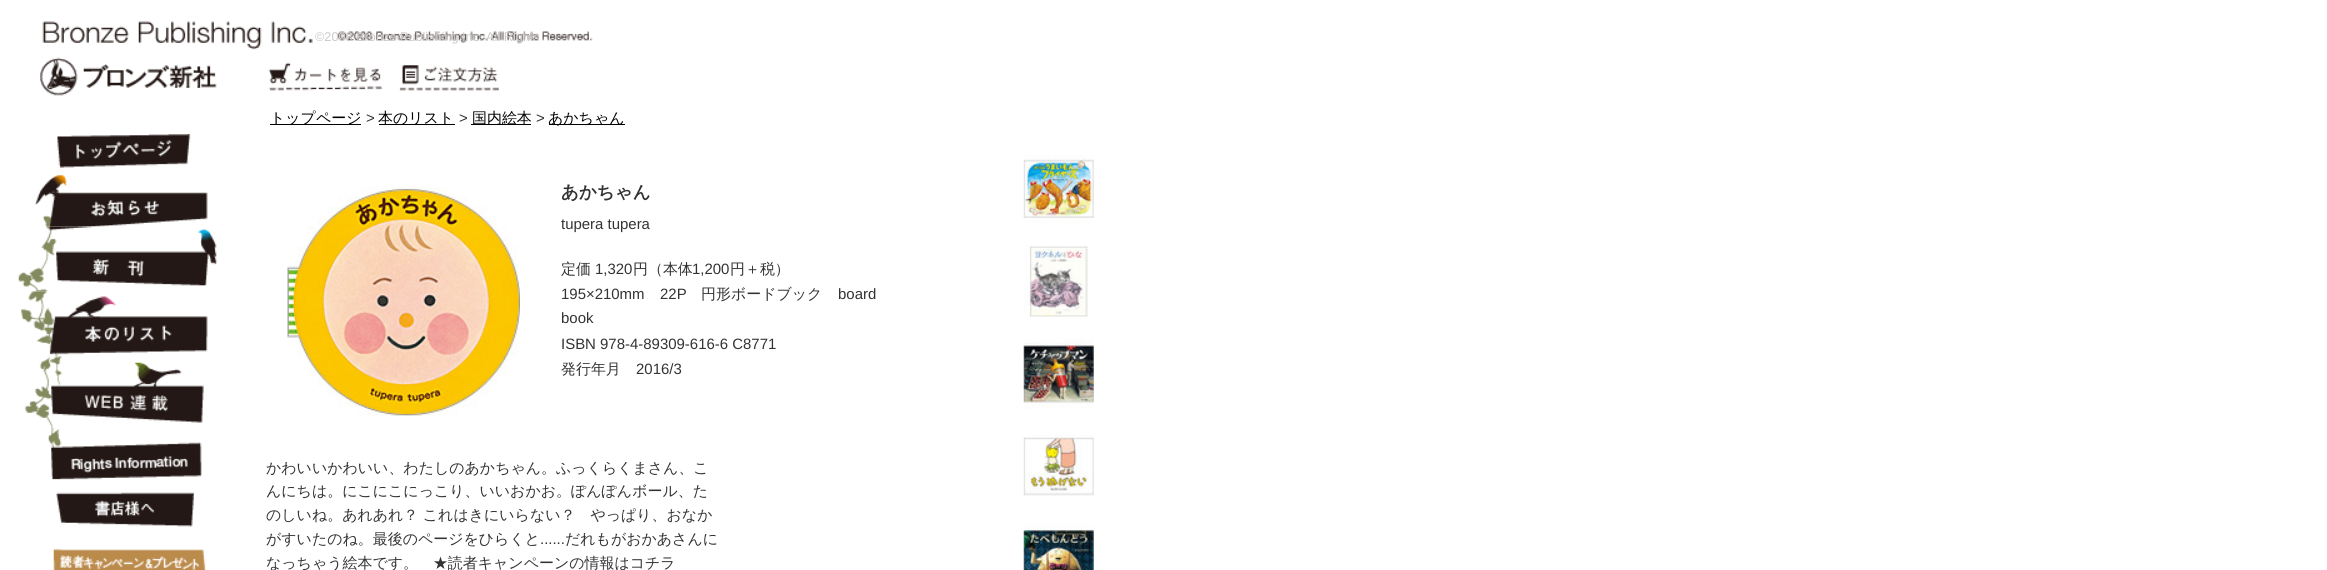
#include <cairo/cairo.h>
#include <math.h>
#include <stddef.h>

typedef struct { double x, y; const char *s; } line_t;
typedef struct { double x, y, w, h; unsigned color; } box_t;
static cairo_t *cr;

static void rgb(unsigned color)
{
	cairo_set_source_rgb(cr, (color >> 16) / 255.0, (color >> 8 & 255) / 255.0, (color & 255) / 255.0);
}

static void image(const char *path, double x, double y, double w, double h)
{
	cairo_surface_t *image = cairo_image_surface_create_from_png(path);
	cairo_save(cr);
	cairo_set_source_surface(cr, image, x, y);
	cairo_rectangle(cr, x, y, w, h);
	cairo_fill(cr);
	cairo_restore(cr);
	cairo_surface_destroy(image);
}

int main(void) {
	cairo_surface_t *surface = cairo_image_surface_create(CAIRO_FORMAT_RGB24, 2327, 570);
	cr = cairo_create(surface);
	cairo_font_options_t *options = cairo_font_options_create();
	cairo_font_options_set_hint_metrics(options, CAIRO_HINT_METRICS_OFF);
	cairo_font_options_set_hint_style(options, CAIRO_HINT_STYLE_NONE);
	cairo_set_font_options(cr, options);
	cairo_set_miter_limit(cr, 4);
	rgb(0xffffff);
	cairo_paint(cr);
	image("img/1.png", 40, 21, 553, 75);
	image("img/2.png", 268, 62, 115, 29);
	image("img/3.png", 399, 65, 100, 26);
	{
		static const box_t items[] = {
			{270, 124, 91, 1, 0x000000},
			{379, 124, 76, 1, 0x000000},
			{471, 124, 60, 1, 0x000000},
			{549, 124, 76, 1, 0x000000},
		};
		for (size_t i = 0; i < sizeof items / sizeof *items; i++) {
			rgb(items[i].color);
			cairo_rectangle(cr, items[i].x, items[i].y, items[i].w, items[i].h);
			cairo_fill(cr);
		}
	}
	image("img/4.png", 57, 134, 134, 34);
	image("img/5.png", 35, 175, 173, 52);
	image("img/6.png", 18, 226, 199, 66);
	image("img/7.png", 21, 291, 187, 66);
	image("img/8.png", 24, 356, 180, 71);
	image("img/9.png", 47, 426, 155, 54);
	image("img/10.png", 56, 492, 138, 35);
	image("img/11.png", 53, 548, 153, 22);
	image("img/12.png", 287, 186, 233, 231);
	image("img/13.png", 1023, 154, 71, 70);
	image("img/14.png", 1024, 246, 64, 71);
	image("img/15.png", 1023, 339, 71, 70);
	image("img/16.png", 1023, 434, 71, 62);
	image("img/17.png", 1023, 524, 71, 46);
	cairo_select_font_face(cr, "Liberation Sans", CAIRO_FONT_SLANT_NORMAL, CAIRO_FONT_WEIGHT_NORMAL);
	cairo_set_font_size(cr, 12.7);
	rgb(0xccc9c9);
	cairo_move_to(cr, 315, 41);
	cairo_show_text(cr, "©2008 Bronze Publishing Inc. All Rights");
	cairo_select_font_face(cr, "WenQuanYi Zen Hei Medium", CAIRO_FONT_SLANT_NORMAL, CAIRO_FONT_WEIGHT_NORMAL);
	cairo_set_font_size(cr, 14.95);
	rgb(0x000000);
	cairo_move_to(cr, 270, 123);
	cairo_show_text(cr, "トップページ");
	cairo_select_font_face(cr, "Liberation Sans", CAIRO_FONT_SLANT_NORMAL, CAIRO_FONT_WEIGHT_NORMAL);
	rgb(0x333333);
	cairo_move_to(cr, 366, 123);
	cairo_show_text(cr, ">");
	cairo_select_font_face(cr, "WenQuanYi Zen Hei Medium", CAIRO_FONT_SLANT_NORMAL, CAIRO_FONT_WEIGHT_NORMAL);
	rgb(0x000000);
	cairo_move_to(cr, 378, 123);
	cairo_show_text(cr, "本のリスト");
	cairo_select_font_face(cr, "Liberation Sans", CAIRO_FONT_SLANT_NORMAL, CAIRO_FONT_WEIGHT_NORMAL);
	rgb(0x333333);
	cairo_move_to(cr, 459, 123);
	cairo_show_text(cr, ">");
	cairo_select_font_face(cr, "WenQuanYi Zen Hei Medium", CAIRO_FONT_SLANT_NORMAL, CAIRO_FONT_WEIGHT_NORMAL);
	rgb(0x000000);
	cairo_move_to(cr, 472, 123);
	cairo_show_text(cr, "国内絵本");
	cairo_select_font_face(cr, "Liberation Sans", CAIRO_FONT_SLANT_NORMAL, CAIRO_FONT_WEIGHT_NORMAL);
	rgb(0x333333);
	cairo_move_to(cr, 536, 123);
	cairo_show_text(cr, ">");
	cairo_select_font_face(cr, "WenQuanYi Zen Hei Medium", CAIRO_FONT_SLANT_NORMAL, CAIRO_FONT_WEIGHT_NORMAL);
	rgb(0x000000);
	cairo_move_to(cr, 548, 123);
	cairo_show_text(cr, "あかちゃん");
	cairo_select_font_face(cr, "WenQuanYi Zen Hei", CAIRO_FONT_SLANT_NORMAL, CAIRO_FONT_WEIGHT_BOLD);
	cairo_set_font_size(cr, 17.5);
	rgb(0x333333);
	cairo_move_to(cr, 561, 198);
	cairo_show_text(cr, "あかちゃん");
	cairo_select_font_face(cr, "Liberation Sans", CAIRO_FONT_SLANT_NORMAL, CAIRO_FONT_WEIGHT_NORMAL);
	cairo_set_font_size(cr, 14.95);
	cairo_move_to(cr, 561, 229);
	cairo_show_text(cr, "tupera tupera");
	cairo_select_font_face(cr, "WenQuanYi Zen Hei Medium", CAIRO_FONT_SLANT_NORMAL, CAIRO_FONT_WEIGHT_NORMAL);
	cairo_move_to(cr, 561, 274);
	cairo_show_text(cr, "定価");
	cairo_select_font_face(cr, "Liberation Sans", CAIRO_FONT_SLANT_NORMAL, CAIRO_FONT_WEIGHT_NORMAL);
	cairo_move_to(cr, 595, 274);
	cairo_show_text(cr, "1,320");
	cairo_select_font_face(cr, "WenQuanYi Zen Hei Medium", CAIRO_FONT_SLANT_NORMAL, CAIRO_FONT_WEIGHT_NORMAL);
	cairo_move_to(cr, 633, 274);
	cairo_show_text(cr, "円（本体");
	cairo_select_font_face(cr, "Liberation Sans", CAIRO_FONT_SLANT_NORMAL, CAIRO_FONT_WEIGHT_NORMAL);
	cairo_move_to(cr, 692, 274);
	cairo_show_text(cr, "1,200");
	cairo_select_font_face(cr, "WenQuanYi Zen Hei Medium", CAIRO_FONT_SLANT_NORMAL, CAIRO_FONT_WEIGHT_NORMAL);
	cairo_move_to(cr, 730, 274);
	cairo_show_text(cr, "円＋税）");
	cairo_select_font_face(cr, "Liberation Sans", CAIRO_FONT_SLANT_NORMAL, CAIRO_FONT_WEIGHT_NORMAL);
	cairo_move_to(cr, 561, 299);
	cairo_show_text(cr, "195×210mm");
	cairo_move_to(cr, 660, 299);
	cairo_show_text(cr, "22P");
	cairo_select_font_face(cr, "WenQuanYi Zen Hei Medium", CAIRO_FONT_SLANT_NORMAL, CAIRO_FONT_WEIGHT_NORMAL);
	cairo_move_to(cr, 701, 299);
	cairo_show_text(cr, "円形ボードブック");
	cairo_select_font_face(cr, "Liberation Sans", CAIRO_FONT_SLANT_NORMAL, CAIRO_FONT_WEIGHT_NORMAL);
	{
		static const line_t items[] = {
			{838, 299, "board"},
			{561, 323, "book"},
			{561, 349, "ISBN 978-4-89309-616-6 C8771"},
		};
		for (size_t i = 0; i < sizeof items / sizeof *items; i++) {
			cairo_move_to(cr, items[i].x, items[i].y);
			cairo_show_text(cr, items[i].s);
		}
	}
	cairo_select_font_face(cr, "WenQuanYi Zen Hei Medium", CAIRO_FONT_SLANT_NORMAL, CAIRO_FONT_WEIGHT_NORMAL);
	cairo_move_to(cr, 561, 374);
	cairo_show_text(cr, "発行年月");
	cairo_select_font_face(cr, "Liberation Sans", CAIRO_FONT_SLANT_NORMAL, CAIRO_FONT_WEIGHT_NORMAL);
	cairo_move_to(cr, 636, 374);
	cairo_show_text(cr, "2016/3");
	cairo_select_font_face(cr, "WenQuanYi Zen Hei Medium", CAIRO_FONT_SLANT_NORMAL, CAIRO_FONT_WEIGHT_NORMAL);
	{
		static const line_t items[] = {
			{266, 473, "かわいいかわいい、わたしのあかちゃん。ふっくらくまさん、こ"},
			{266, 496, "んにちは。にこにこにっこり、いいおかお。ぽんぽんボール、た"},
			{266, 520, "のしいね。あれあれ？ これはきにいらない？　やっぱり、おなか"},
			{266, 544, "がすいたのね。最後のページをひらくと"},
		};
		for (size_t i = 0; i < sizeof items / sizeof *items; i++) {
			cairo_move_to(cr, items[i].x, items[i].y);
			cairo_show_text(cr, items[i].s);
		}
	}
	cairo_select_font_face(cr, "Liberation Sans", CAIRO_FONT_SLANT_NORMAL, CAIRO_FONT_WEIGHT_NORMAL);
	cairo_move_to(cr, 540, 544);
	cairo_show_text(cr, "......");
	cairo_select_font_face(cr, "WenQuanYi Zen Hei Medium", CAIRO_FONT_SLANT_NORMAL, CAIRO_FONT_WEIGHT_NORMAL);
	cairo_move_to(cr, 565, 544);
	cairo_show_text(cr, "だれもがおかあさんに");
	cairo_move_to(cr, 266, 568);
	cairo_show_text(cr, "なっちゃう絵本です。　★読者キャンペーンの情報はコチラ");
	cairo_surface_write_to_png(surface, "page.png");
	cairo_font_options_destroy(options);
	cairo_destroy(cr);
	cairo_surface_destroy(surface);
	return 0;
}
